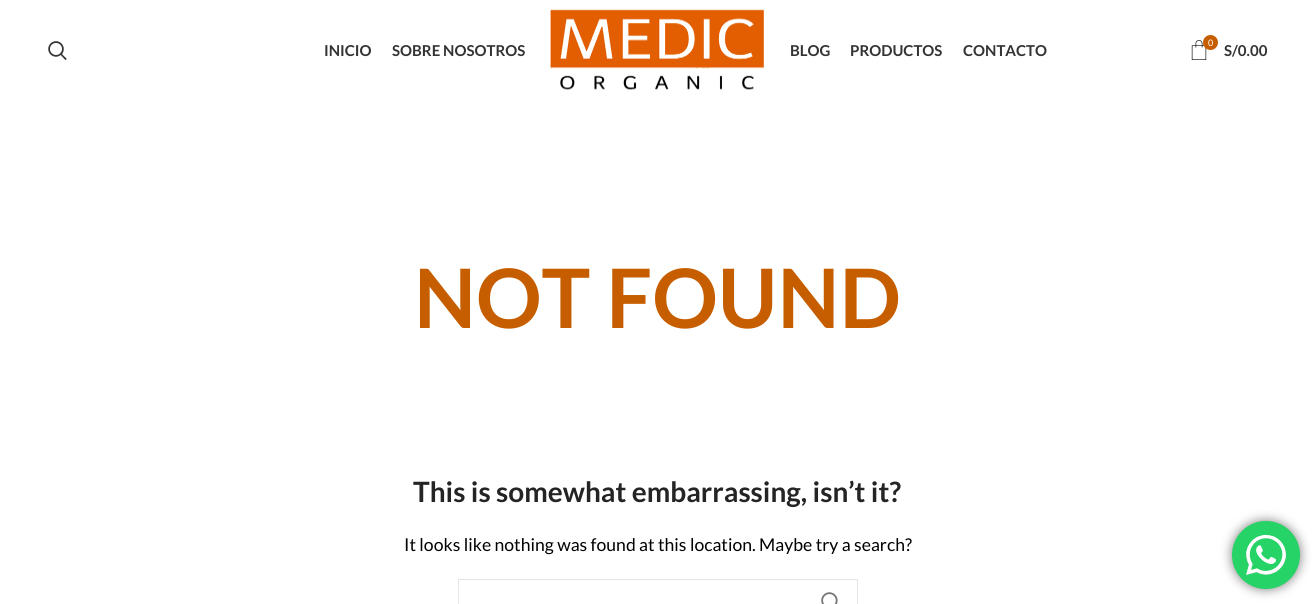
#include <cairo/cairo.h>
#include <math.h>
#include <stddef.h>

typedef struct { double x, y; const char *s; } line_t;
static cairo_t *cr;

static void rgb(unsigned color)
{
	cairo_set_source_rgb(cr, (color >> 16) / 255.0, (color >> 8 & 255) / 255.0, (color & 255) / 255.0);
}

static void rrect(double x, double y, double w, double h, double r)
{
	cairo_new_sub_path(cr);
	cairo_arc(cr, x + w - r, y + h - r, r, 0, M_PI / 2);
	cairo_arc(cr, x + r, y + h - r, r, M_PI / 2, M_PI);
	cairo_arc(cr, x + r, y + r, r, M_PI, 1.5 * M_PI);
	cairo_arc(cr, x + w - r, y + r, r, 1.5 * M_PI, 2 * M_PI);
	cairo_close_path(cr);
}

static void soft_shadow(double x, double y, double w, double h, double r, double blur, double alpha)
{
	cairo_push_group_with_content(cr, CAIRO_CONTENT_ALPHA);
	cairo_set_operator(cr, CAIRO_OPERATOR_SOURCE);
	for (int i = 15; i >= -15 && fmin(w, h) + blur * i / 3 > 0; i -= 2) {
		double e = blur * i / 6;
		cairo_set_source_rgba(cr, 0, 0, 0, alpha * erfc((i - 1) / 8.5) / 2);
		rrect(x - e, y - e, w + 2 * e, h + 2 * e, fmax(0, fmin(r + e + blur * .6, fmin(w, h) / 2 + e)));
		cairo_fill(cr);
	}
	cairo_pattern_t *soft = cairo_pop_group(cr);
	cairo_mask(cr, soft);
	cairo_pattern_destroy(soft);
}

static void image(const char *path, double x, double y, double w, double h)
{
	cairo_surface_t *image = cairo_image_surface_create_from_png(path);
	cairo_save(cr);
	cairo_set_source_surface(cr, image, x, y);
	cairo_rectangle(cr, x, y, w, h);
	cairo_fill(cr);
	cairo_restore(cr);
	cairo_surface_destroy(image);
}

int main(void) {
	cairo_surface_t *surface = cairo_image_surface_create(CAIRO_FORMAT_RGB24, 1315, 604);
	cr = cairo_create(surface);
	cairo_font_options_t *options = cairo_font_options_create();
	cairo_font_options_set_hint_metrics(options, CAIRO_HINT_METRICS_OFF);
	cairo_font_options_set_hint_style(options, CAIRO_HINT_STYLE_NONE);
	cairo_set_font_options(cr, options);
	cairo_set_miter_limit(cr, 4);
	rgb(0xffffff);
	cairo_paint(cr);
	image("img/1.png", 48, 41, 19, 20);
	image("img/2.png", 550, 9, 214, 81);
	image("img/3.png", 1191, 40, 16, 20);
	rgb(0xc65e00);
	cairo_arc(cr, 1210.5, 42.5, 7.5, 0, 2 * M_PI);
	cairo_fill(cr);
	cairo_rectangle(cr, 458.5, 579.5, 399, 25);
	rgb(0xe6e6e6);
	cairo_set_line_width(cr, 1);
	cairo_stroke(cr);
	image("img/4.png", 821, 592, 17, 12);
	rgb(0x000000);
	soft_shadow(1232, 521, 68, 68, 34, 5.5, 0.5);
	rgb(0x25d366);
	cairo_arc(cr, 1266, 555, 34, 0, 2 * M_PI);
	cairo_fill(cr);
	image("img/5.png", 1246, 535, 40, 40);
	cairo_select_font_face(cr, "Lato", CAIRO_FONT_SLANT_NORMAL, CAIRO_FONT_WEIGHT_BOLD);
	cairo_set_font_size(cr, 15);
	rgb(0x333333);
	{
		static const line_t items[] = {
			{324, 56, "INICIO"},
			{392, 56, "SOBRE NOSOTROS"},
			{790, 56, "BLOG"},
			{850, 56, "PRODUCTOS"},
			{963, 56, "CONTACTO"},
		};
		for (size_t i = 0; i < sizeof items / sizeof *items; i++) {
			cairo_move_to(cr, items[i].x, items[i].y);
			cairo_show_text(cr, items[i].s);
		}
	}
	cairo_select_font_face(cr, "Lato", CAIRO_FONT_SLANT_NORMAL, CAIRO_FONT_WEIGHT_NORMAL);
	cairo_set_font_size(cr, 9);
	rgb(0xffffff);
	cairo_move_to(cr, 1208, 46);
	cairo_show_text(cr, "0");
	cairo_select_font_face(cr, "Lato", CAIRO_FONT_SLANT_NORMAL, CAIRO_FONT_WEIGHT_BOLD);
	cairo_set_font_size(cr, 15);
	rgb(0x333333);
	cairo_move_to(cr, 1224, 56);
	cairo_show_text(cr, "S/0.00");
	cairo_set_font_size(cr, 82);
	rgb(0xc65e00);
	cairo_move_to(cr, 414, 328);
	cairo_show_text(cr, "NOT FOUND");
	cairo_set_font_size(cr, 28);
	rgb(0x242424);
	cairo_move_to(cr, 413, 502);
	cairo_show_text(cr, "This is somewhat embarrassing, isn’t it?");
	cairo_select_font_face(cr, "Lato", CAIRO_FONT_SLANT_NORMAL, CAIRO_FONT_WEIGHT_NORMAL);
	cairo_set_font_size(cr, 17.6);
	rgb(0x000000);
	cairo_move_to(cr, 404, 551);
	cairo_show_text(cr, "It looks like nothing was found at this location. Maybe try a search?");
	cairo_surface_write_to_png(surface, "page.png");
	cairo_font_options_destroy(options);
	cairo_destroy(cr);
	cairo_surface_destroy(surface);
	return 0;
}
